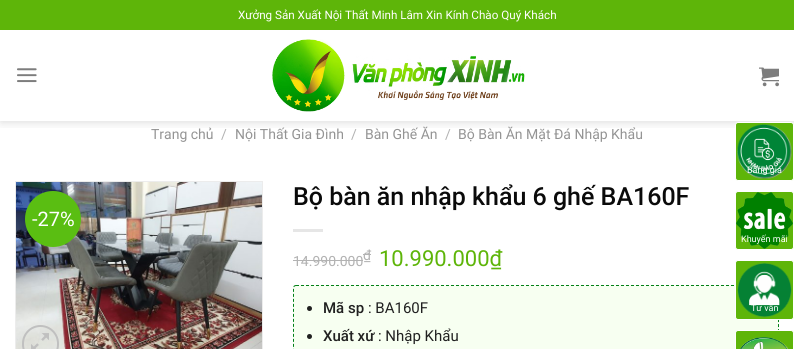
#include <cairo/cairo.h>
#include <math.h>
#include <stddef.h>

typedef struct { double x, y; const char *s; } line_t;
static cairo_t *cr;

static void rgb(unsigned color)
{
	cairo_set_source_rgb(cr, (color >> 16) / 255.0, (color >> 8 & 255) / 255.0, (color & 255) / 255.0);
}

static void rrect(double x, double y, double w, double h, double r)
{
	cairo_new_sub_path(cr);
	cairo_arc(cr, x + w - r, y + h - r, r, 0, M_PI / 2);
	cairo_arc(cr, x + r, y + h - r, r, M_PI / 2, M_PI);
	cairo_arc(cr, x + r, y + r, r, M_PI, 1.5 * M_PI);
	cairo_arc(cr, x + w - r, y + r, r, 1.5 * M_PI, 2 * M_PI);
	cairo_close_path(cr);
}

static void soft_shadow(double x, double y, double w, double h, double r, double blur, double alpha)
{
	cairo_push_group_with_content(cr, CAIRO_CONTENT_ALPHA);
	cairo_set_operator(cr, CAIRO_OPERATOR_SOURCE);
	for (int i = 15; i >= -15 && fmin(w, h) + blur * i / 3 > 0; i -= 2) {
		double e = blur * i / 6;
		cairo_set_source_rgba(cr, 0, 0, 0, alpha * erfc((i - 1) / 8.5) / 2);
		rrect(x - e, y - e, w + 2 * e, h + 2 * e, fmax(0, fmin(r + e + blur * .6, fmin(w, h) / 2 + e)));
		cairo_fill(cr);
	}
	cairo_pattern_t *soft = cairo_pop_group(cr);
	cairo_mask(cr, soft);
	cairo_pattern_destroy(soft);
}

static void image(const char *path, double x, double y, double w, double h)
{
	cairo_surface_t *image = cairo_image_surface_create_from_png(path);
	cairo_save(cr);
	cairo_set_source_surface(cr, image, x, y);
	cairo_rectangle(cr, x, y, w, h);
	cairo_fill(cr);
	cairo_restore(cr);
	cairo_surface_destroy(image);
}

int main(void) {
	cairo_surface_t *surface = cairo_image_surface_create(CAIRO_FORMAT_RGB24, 794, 349);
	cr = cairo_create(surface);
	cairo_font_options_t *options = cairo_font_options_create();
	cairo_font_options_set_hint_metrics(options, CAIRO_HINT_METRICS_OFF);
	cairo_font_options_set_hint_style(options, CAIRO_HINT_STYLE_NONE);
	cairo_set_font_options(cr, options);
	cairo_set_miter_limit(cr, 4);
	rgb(0xffffff);
	cairo_paint(cr);
	cairo_save(cr);
	cairo_rectangle(cr, 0, 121, 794, 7);
	cairo_clip(cr);
	rgb(0x000000);
	soft_shadow(1, 1, 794, 121, 0, 5, 0.15);
	cairo_restore(cr);
	rgb(0x5eb509);
	cairo_rectangle(cr, 0, 0, 794, 30);
	cairo_fill(cr);
	image("img/1.png", 17, 68, 20, 15);
	image("img/2.png", 272, 39, 253, 73);
	image("img/3.png", 759, 67, 20, 20);
	cairo_rectangle(cr, 15.5, 181.5, 247, 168);
	rgb(0xececec);
	cairo_set_line_width(cr, 1);
	cairo_stroke(cr);
	image("img/4.png", 16, 182, 246, 167);
	rgb(0x5abe12);
	cairo_arc(cr, 53, 219, 28, 0, 2 * M_PI);
	cairo_fill(cr);
	rrect(23, 326, 35, 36, 17.5);
	rgb(0xc0c0c0);
	cairo_set_line_width(cr, 2);
	cairo_stroke(cr);
	image("img/5.png", 31, 333, 18, 16);
	rgb(0xe6e6e6);
	cairo_rectangle(cr, 293, 229, 30, 3);
	cairo_fill(cr);
	rgb(0xf7fff1);
	rrect(293, 285, 486, 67, 3);
	cairo_fill(cr);
	cairo_new_path(cr);
	cairo_move_to(cr, 296, 285.5);
	cairo_line_to(cr, 776, 285.5);
	cairo_curve_to(cr, 777.5, 285.5, 778.5, 286.5, 778.5, 288);
	cairo_line_to(cr, 778.5, 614);
	cairo_curve_to(cr, 778.5, 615.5, 777.5, 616.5, 776, 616.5);
	cairo_line_to(cr, 296, 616.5);
	cairo_curve_to(cr, 294.5, 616.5, 293.5, 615.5, 293.5, 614);
	cairo_line_to(cr, 293.5, 288);
	cairo_curve_to(cr, 293.5, 286.5, 294.5, 285.5, 296, 285.5);
	cairo_close_path(cr);
	rgb(0x038018);
	cairo_set_line_width(cr, 1);
	cairo_set_dash(cr, (double[]){3, 2}, 2, 0);
	cairo_stroke(cr);
	rgb(0x212121);
	cairo_arc(cr, 309.5, 308.5, 2.5, 0, 2 * M_PI);
	cairo_fill(cr);
	cairo_arc(cr, 309.5, 336.5, 2.5, 0, 2 * M_PI);
	cairo_fill(cr);
	rgb(0x5eb509);
	rrect(735.5, 122.5, 58, 58, 2.5);
	cairo_fill_preserve(cr);
	rgb(0xffffff);
	cairo_set_dash(cr, NULL, 0, 0);
	cairo_stroke(cr);
	image("img/6.png", 737, 124, 55, 55);
	rgb(0x5eb509);
	rrect(735.5, 191.5, 58, 58, 2.5);
	cairo_fill_preserve(cr);
	rgb(0xffffff);
	cairo_stroke(cr);
	image("img/7.png", 736, 192, 57, 57);
	rgb(0x5eb509);
	rrect(735.5, 260.5, 58, 59, 2.5);
	cairo_fill_preserve(cr);
	rgb(0xffffff);
	cairo_stroke(cr);
	image("img/8.png", 737, 263, 55, 55);
	rgb(0x5eb509);
	rrect(735.5, 330.5, 58, 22, 2.5);
	cairo_fill_preserve(cr);
	rgb(0xffffff);
	cairo_stroke(cr);
	image("img/9.png", 740, 337, 49, 12);
	cairo_select_font_face(cr, "Roboto", CAIRO_FONT_SLANT_NORMAL, CAIRO_FONT_WEIGHT_NORMAL);
	cairo_set_font_size(cr, 11.65);
	cairo_move_to(cr, 238, 19);
	cairo_show_text(cr, "Xưởng Sản Xuất Nội Thất Minh Lâm Xin Kính Chào Quý Khách");
	cairo_set_font_size(cr, 14);
	rgb(0x949494);
	cairo_move_to(cr, 151, 139);
	cairo_show_text(cr, "Trang chủ");
	rgb(0xb2b2b2);
	cairo_move_to(cr, 221, 139);
	cairo_show_text(cr, "/");
	rgb(0x949494);
	cairo_move_to(cr, 235, 139);
	cairo_show_text(cr, "Nội Thất Gia Đình");
	rgb(0xb2b2b2);
	cairo_move_to(cr, 351, 139);
	cairo_show_text(cr, "/");
	rgb(0x949494);
	cairo_move_to(cr, 365, 139);
	cairo_show_text(cr, "Bàn Ghế Ăn");
	rgb(0xb2b2b2);
	cairo_move_to(cr, 445, 139);
	cairo_show_text(cr, "/");
	rgb(0x949494);
	cairo_move_to(cr, 458, 139);
	cairo_show_text(cr, "Bộ Bàn Ăn Mặt Đá Nhập Khẩu");
	cairo_set_font_size(cr, 20);
	rgb(0xffffff);
	cairo_move_to(cr, 32, 226);
	cairo_show_text(cr, "-27%");
	cairo_select_font_face(cr, "Roboto Medium", CAIRO_FONT_SLANT_NORMAL, CAIRO_FONT_WEIGHT_NORMAL);
	cairo_set_font_size(cr, 25);
	rgb(0x0a0a0a);
	cairo_move_to(cr, 293, 205);
	cairo_show_text(cr, "Bộ bàn ăn nhập khẩu 6 ghế BA160F");
	cairo_select_font_face(cr, "Roboto", CAIRO_FONT_SLANT_NORMAL, CAIRO_FONT_WEIGHT_NORMAL);
	cairo_set_font_size(cr, 14);
	rgb(0xb2b2b2);
	cairo_move_to(cr, 293, 266);
	cairo_show_text(cr, "14.990.000");
	rgb(0xb3b3b3);
	cairo_rectangle(cr, 293, 260, 70, 1);
	cairo_fill(cr);
	rgb(0xb2b2b2);
	cairo_move_to(cr, 363, 260);
	cairo_show_text(cr, "₫");
	rgb(0xb3b3b3);
	cairo_rectangle(cr, 363, 254, 8, 1);
	cairo_fill(cr);
	cairo_set_font_size(cr, 22);
	rgb(0x5eb509);
	cairo_move_to(cr, 379, 266);
	cairo_show_text(cr, "10.990.000₫");
	cairo_select_font_face(cr, "Roboto Medium", CAIRO_FONT_SLANT_NORMAL, CAIRO_FONT_WEIGHT_NORMAL);
	cairo_set_font_size(cr, 15);
	rgb(0x212121);
	cairo_move_to(cr, 323, 313);
	cairo_show_text(cr, "Mã sp");
	cairo_select_font_face(cr, "Roboto", CAIRO_FONT_SLANT_NORMAL, CAIRO_FONT_WEIGHT_NORMAL);
	cairo_move_to(cr, 368, 313);
	cairo_show_text(cr, ": BA160F");
	cairo_select_font_face(cr, "Roboto Medium", CAIRO_FONT_SLANT_NORMAL, CAIRO_FONT_WEIGHT_NORMAL);
	cairo_move_to(cr, 323, 341);
	cairo_show_text(cr, "Xuất xứ");
	cairo_select_font_face(cr, "Roboto", CAIRO_FONT_SLANT_NORMAL, CAIRO_FONT_WEIGHT_NORMAL);
	cairo_move_to(cr, 378, 341);
	cairo_show_text(cr, ": Nhập Khẩu");
	cairo_set_font_size(cr, 9);
	rgb(0xffffff);
	{
		static const line_t items[] = {
			{747, 173, "Bảng giá"},
			{741, 242, "Khuyến mãi"},
			{751, 311, "Tư vấn"},
		};
		for (size_t i = 0; i < sizeof items / sizeof *items; i++) {
			cairo_move_to(cr, items[i].x, items[i].y);
			cairo_show_text(cr, items[i].s);
		}
	}
	cairo_surface_write_to_png(surface, "page.png");
	cairo_font_options_destroy(options);
	cairo_destroy(cr);
	cairo_surface_destroy(surface);
	return 0;
}
